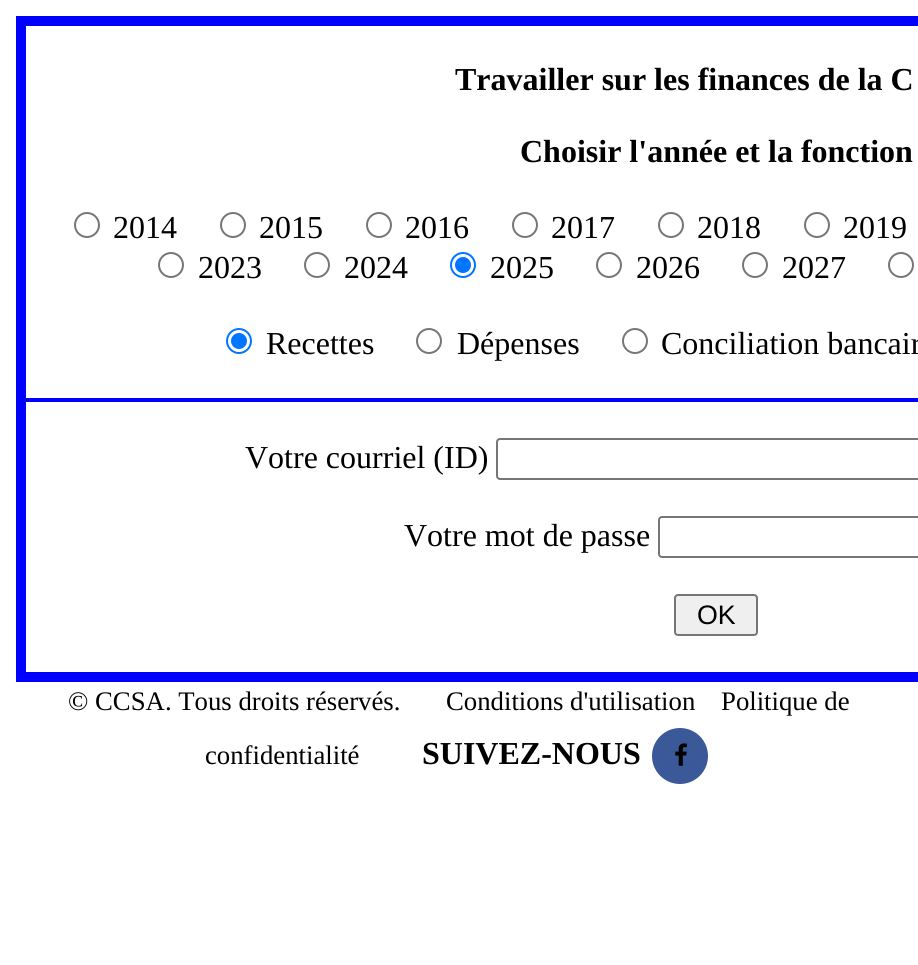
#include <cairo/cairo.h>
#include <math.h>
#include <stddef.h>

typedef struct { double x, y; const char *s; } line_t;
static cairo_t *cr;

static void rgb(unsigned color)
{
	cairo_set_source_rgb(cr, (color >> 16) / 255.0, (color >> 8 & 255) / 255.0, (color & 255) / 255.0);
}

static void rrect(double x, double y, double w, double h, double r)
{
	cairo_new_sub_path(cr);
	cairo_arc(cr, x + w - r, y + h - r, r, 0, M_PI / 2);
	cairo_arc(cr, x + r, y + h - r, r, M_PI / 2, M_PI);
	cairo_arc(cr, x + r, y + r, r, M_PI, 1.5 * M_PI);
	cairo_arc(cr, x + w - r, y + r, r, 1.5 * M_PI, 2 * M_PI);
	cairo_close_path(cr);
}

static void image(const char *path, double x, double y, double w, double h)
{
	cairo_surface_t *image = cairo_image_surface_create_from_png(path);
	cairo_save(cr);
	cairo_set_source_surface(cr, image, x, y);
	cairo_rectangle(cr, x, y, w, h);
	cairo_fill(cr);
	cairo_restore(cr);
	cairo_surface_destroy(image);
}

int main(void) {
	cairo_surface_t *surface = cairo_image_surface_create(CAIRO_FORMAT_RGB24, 918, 965);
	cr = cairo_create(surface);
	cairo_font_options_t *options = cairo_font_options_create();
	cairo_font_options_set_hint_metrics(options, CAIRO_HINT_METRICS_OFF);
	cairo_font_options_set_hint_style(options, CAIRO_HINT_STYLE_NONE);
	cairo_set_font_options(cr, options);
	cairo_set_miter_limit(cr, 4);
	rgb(0xffffff);
	cairo_paint(cr);
	cairo_rectangle(cr, 20, 20, 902, 658);
	rgb(0x0000ff);
	cairo_set_line_width(cr, 8);
	cairo_stroke(cr);
	cairo_rectangle(cr, 25, 25, 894, 374);
	cairo_set_line_width(cr, 2);
	cairo_stroke(cr);
	cairo_arc(cr, 87, 225, 12, 0, 2 * M_PI);
	rgb(0x767676);
	cairo_stroke(cr);
	cairo_arc(cr, 233, 225, 12, 0, 2 * M_PI);
	cairo_stroke(cr);
	cairo_arc(cr, 379, 225, 12, 0, 2 * M_PI);
	cairo_stroke(cr);
	cairo_arc(cr, 525, 225, 12, 0, 2 * M_PI);
	cairo_stroke(cr);
	cairo_arc(cr, 671, 225, 12, 0, 2 * M_PI);
	cairo_stroke(cr);
	cairo_arc(cr, 817, 225, 12, 0, 2 * M_PI);
	cairo_stroke(cr);
	cairo_arc(cr, 171, 265, 12, 0, 2 * M_PI);
	cairo_stroke(cr);
	cairo_arc(cr, 317, 265, 12, 0, 2 * M_PI);
	cairo_stroke(cr);
	cairo_arc(cr, 463, 265, 12, 0, 2 * M_PI);
	rgb(0x0075ff);
	cairo_stroke(cr);
	cairo_arc(cr, 463, 265, 8, 0, 2 * M_PI);
	cairo_fill(cr);
	cairo_arc(cr, 609, 265, 12, 0, 2 * M_PI);
	rgb(0x767676);
	cairo_stroke(cr);
	cairo_arc(cr, 755, 265, 12, 0, 2 * M_PI);
	cairo_stroke(cr);
	cairo_arc(cr, 901, 265, 12, 0, 2 * M_PI);
	cairo_stroke(cr);
	cairo_arc(cr, 239, 341, 12, 0, 2 * M_PI);
	rgb(0x0075ff);
	cairo_stroke(cr);
	cairo_arc(cr, 239, 341, 8, 0, 2 * M_PI);
	cairo_fill(cr);
	cairo_arc(cr, 429, 341, 12, 0, 2 * M_PI);
	rgb(0x767676);
	cairo_stroke(cr);
	cairo_arc(cr, 635, 341, 12, 0, 2 * M_PI);
	cairo_stroke(cr);
	cairo_rectangle(cr, 25, 401, 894, 272);
	rgb(0x0000ff);
	cairo_stroke(cr);
	rrect(497, 439, 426, 40, 3);
	rgb(0x767676);
	cairo_stroke(cr);
	rrect(659, 517, 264, 40, 3);
	cairo_stroke(cr);
	rgb(0xefefef);
	rrect(675, 595, 82, 40, 3);
	cairo_fill_preserve(cr);
	rgb(0x767676);
	cairo_stroke(cr);
	rgb(0x3b5998);
	cairo_arc(cr, 680, 756, 28, 0, 2 * M_PI);
	cairo_fill(cr);
	image("img/1.png", 675, 743, 12, 23);
	cairo_select_font_face(cr, "Liberation Serif", CAIRO_FONT_SLANT_NORMAL, CAIRO_FONT_WEIGHT_BOLD);
	cairo_set_font_size(cr, 32);
	rgb(0x000000);
	cairo_move_to(cr, 455, 90);
	cairo_show_text(cr, "Travailler sur les finances de la C");
	cairo_move_to(cr, 520, 162);
	cairo_show_text(cr, "Choisir l'année et la fonction");
	cairo_select_font_face(cr, "Liberation Serif", CAIRO_FONT_SLANT_NORMAL, CAIRO_FONT_WEIGHT_NORMAL);
	{
		static const line_t items[] = {
			{113, 238, "2014"},
			{259, 238, "2015"},
			{405, 238, "2016"},
			{551, 238, "2017"},
			{697, 238, "2018"},
			{843, 238, "2019"},
			{198, 278, "2023"},
			{344, 278, "2024"},
			{490, 278, "2025"},
			{636, 278, "2026"},
			{782, 278, "2027"},
			{266, 354, "Recettes"},
			{457, 354, "Dépenses"},
			{661, 354, "Conciliation bancair"},
			{245, 468, "Votre courriel (ID)"},
			{404, 546, "Votre mot de passe"},
		};
		for (size_t i = 0; i < sizeof items / sizeof *items; i++) {
			cairo_move_to(cr, items[i].x, items[i].y);
			cairo_show_text(cr, items[i].s);
		}
	}
	cairo_select_font_face(cr, "Liberation Sans", CAIRO_FONT_SLANT_NORMAL, CAIRO_FONT_WEIGHT_NORMAL);
	cairo_set_font_size(cr, 26.75);
	cairo_move_to(cr, 697, 624);
	cairo_show_text(cr, "OK");
	cairo_select_font_face(cr, "Liberation Serif", CAIRO_FONT_SLANT_NORMAL, CAIRO_FONT_WEIGHT_NORMAL);
	{
		static const line_t items[] = {
			{68, 710, "© CCSA. Tous droits réservés."},
			{446, 710, "Conditions d'utilisation"},
			{721, 710, "Politique de"},
			{205, 764, "confidentialité"},
		};
		for (size_t i = 0; i < sizeof items / sizeof *items; i++) {
			cairo_move_to(cr, items[i].x, items[i].y);
			cairo_show_text(cr, items[i].s);
		}
	}
	cairo_select_font_face(cr, "Liberation Serif", CAIRO_FONT_SLANT_NORMAL, CAIRO_FONT_WEIGHT_BOLD);
	cairo_set_font_size(cr, 32);
	cairo_move_to(cr, 422, 764);
	cairo_show_text(cr, "SUIVEZ-NOUS");
	cairo_surface_write_to_png(surface, "page.png");
	cairo_font_options_destroy(options);
	cairo_destroy(cr);
	cairo_surface_destroy(surface);
	return 0;
}
